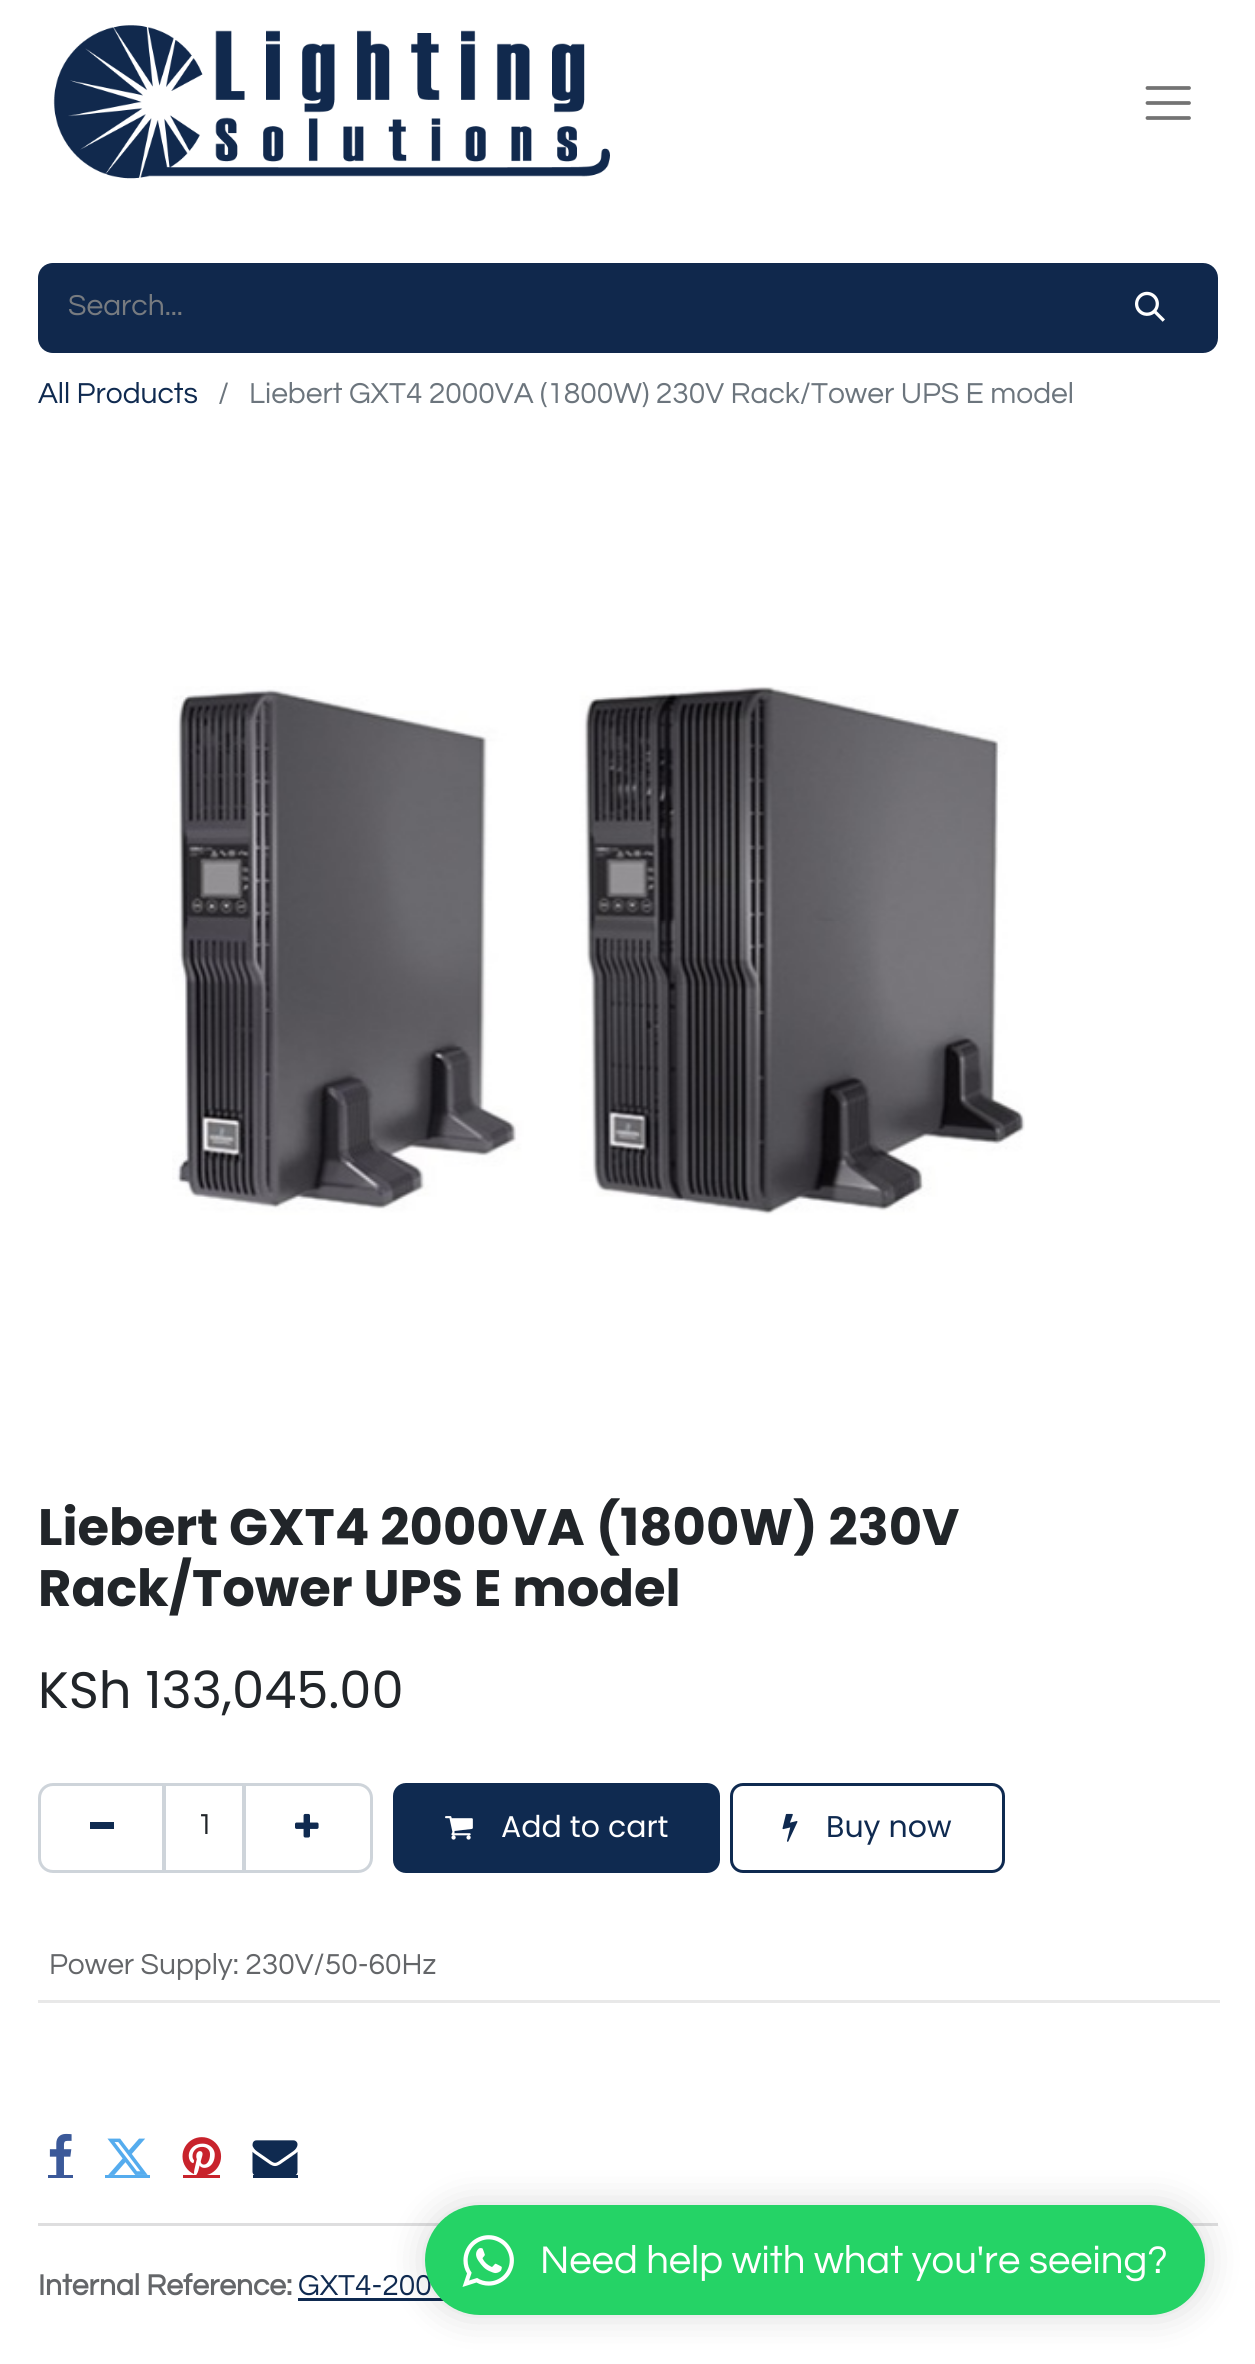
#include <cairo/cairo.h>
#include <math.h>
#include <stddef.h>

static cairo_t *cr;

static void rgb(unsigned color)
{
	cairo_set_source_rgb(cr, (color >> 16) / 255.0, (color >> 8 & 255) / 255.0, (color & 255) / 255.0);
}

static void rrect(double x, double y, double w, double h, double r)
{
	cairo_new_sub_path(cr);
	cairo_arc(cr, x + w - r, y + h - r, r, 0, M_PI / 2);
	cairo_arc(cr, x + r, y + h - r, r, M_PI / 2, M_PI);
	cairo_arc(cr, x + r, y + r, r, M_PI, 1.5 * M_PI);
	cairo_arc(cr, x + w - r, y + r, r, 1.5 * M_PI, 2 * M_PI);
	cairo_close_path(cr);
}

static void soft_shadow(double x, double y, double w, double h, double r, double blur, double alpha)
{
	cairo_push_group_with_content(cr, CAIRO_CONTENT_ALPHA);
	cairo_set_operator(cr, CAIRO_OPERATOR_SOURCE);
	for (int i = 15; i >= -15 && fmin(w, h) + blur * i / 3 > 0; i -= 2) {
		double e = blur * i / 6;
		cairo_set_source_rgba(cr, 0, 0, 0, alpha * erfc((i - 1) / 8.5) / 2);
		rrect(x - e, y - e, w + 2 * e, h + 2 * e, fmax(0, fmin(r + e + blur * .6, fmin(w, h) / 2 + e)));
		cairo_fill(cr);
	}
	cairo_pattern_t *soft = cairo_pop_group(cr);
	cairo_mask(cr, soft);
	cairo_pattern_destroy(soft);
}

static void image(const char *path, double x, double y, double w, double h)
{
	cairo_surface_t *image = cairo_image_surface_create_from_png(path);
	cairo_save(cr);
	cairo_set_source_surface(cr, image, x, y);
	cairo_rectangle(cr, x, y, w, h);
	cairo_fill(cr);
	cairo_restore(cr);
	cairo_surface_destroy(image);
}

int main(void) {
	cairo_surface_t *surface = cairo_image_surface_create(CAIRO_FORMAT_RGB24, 1255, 2364);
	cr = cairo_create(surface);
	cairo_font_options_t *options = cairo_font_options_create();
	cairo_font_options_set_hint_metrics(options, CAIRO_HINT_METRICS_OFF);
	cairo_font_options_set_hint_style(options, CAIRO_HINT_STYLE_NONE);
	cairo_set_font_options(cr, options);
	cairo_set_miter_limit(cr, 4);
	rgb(0xffffff);
	cairo_paint(cr);
	image("img/1.png", 53, 25, 557, 154);
	cairo_new_path(cr);
	cairo_move_to(cr, 1147.5, 88);
	cairo_line_to(cr, 1189, 88);
	cairo_move_to(cr, 1147.5, 103);
	cairo_line_to(cr, 1189, 103);
	cairo_move_to(cr, 1147.5, 118);
	cairo_line_to(cr, 1189, 118);
	rgb(0x737373);
	cairo_set_line_width(cr, 3.8);
	cairo_set_line_cap(cr, CAIRO_LINE_CAP_ROUND);
	cairo_stroke(cr);
	rgb(0x10284c);
	cairo_new_path(cr);
	cairo_move_to(cr, 53, 263);
	cairo_line_to(cr, 1085, 263);
	cairo_line_to(cr, 1085, 353);
	cairo_line_to(cr, 53, 353);
	cairo_curve_to(cr, 44.5, 353, 38, 346.5, 38, 338);
	cairo_line_to(cr, 38, 278);
	cairo_curve_to(cr, 38, 269.5, 44.5, 263, 53, 263);
	cairo_close_path(cr);
	cairo_fill(cr);
	cairo_new_path(cr);
	cairo_move_to(cr, 1084.5, 264.5);
	cairo_line_to(cr, 1203, 264.5);
	cairo_curve_to(cr, 1210.5, 264.5, 1216.5, 270.5, 1216.5, 278);
	cairo_line_to(cr, 1216.5, 338);
	cairo_curve_to(cr, 1216.5, 345.5, 1210.5, 351.5, 1203, 351.5);
	cairo_line_to(cr, 1084.5, 351.5);
	cairo_close_path(cr);
	cairo_fill_preserve(cr);
	cairo_set_line_width(cr, 3);
	cairo_set_line_cap(cr, CAIRO_LINE_CAP_BUTT);
	cairo_stroke(cr);
	image("img/2.png", 1135, 291, 30, 31);
	image("img/3.png", 172, 686, 853, 529);
	cairo_rectangle(cr, 164.5, 1784.5, 79, 87);
	rgb(0xced4da);
	cairo_stroke(cr);
	cairo_new_path(cr);
	cairo_move_to(cr, 53, 1784.5);
	cairo_line_to(cr, 163.5, 1784.5);
	cairo_line_to(cr, 163.5, 1871.5);
	cairo_line_to(cr, 53, 1871.5);
	cairo_curve_to(cr, 45.5, 1871.5, 39.5, 1865.5, 39.5, 1858);
	cairo_line_to(cr, 39.5, 1798);
	cairo_curve_to(cr, 39.5, 1790.5, 45.5, 1784.5, 53, 1784.5);
	cairo_close_path(cr);
	cairo_stroke(cr);
	rgb(0x0f2a50);
	cairo_rectangle(cr, 90, 1822, 24, 7);
	cairo_fill(cr);
	cairo_new_path(cr);
	cairo_move_to(cr, 244.5, 1784.5);
	cairo_line_to(cr, 358, 1784.5);
	cairo_curve_to(cr, 365.5, 1784.5, 371.5, 1790.5, 371.5, 1798);
	cairo_line_to(cr, 371.5, 1858);
	cairo_curve_to(cr, 371.5, 1865.5, 365.5, 1871.5, 358, 1871.5);
	cairo_line_to(cr, 244.5, 1871.5);
	cairo_close_path(cr);
	rgb(0xced4da);
	cairo_stroke(cr);
	image("img/4.png", 295, 1813, 24, 25);
	rgb(0x0f2a50);
	rrect(394.5, 1784.5, 324, 87, 11.5);
	cairo_fill_preserve(cr);
	cairo_stroke(cr);
	image("img/5.png", 445, 1816, 28, 24);
	rrect(731.5, 1784.5, 272, 87, 11.5);
	cairo_stroke(cr);
	image("img/6.png", 782, 1813, 16, 29);
	rgb(0xe8e8e8);
	cairo_rectangle(cr, 38, 2000, 1182, 3);
	cairo_fill(cr);
	rgb(0x3b5999);
	cairo_rectangle(cr, 48, 2175, 25, 3);
	cairo_fill(cr);
	image("img/7.png", 49, 2133, 23, 42);
	rgb(0x55acee);
	cairo_rectangle(cr, 105, 2175, 45, 3);
	cairo_fill(cr);
	image("img/8.png", 107, 2138, 41, 37);
	rgb(0xc8232c);
	cairo_rectangle(cr, 183, 2175, 37, 3);
	cairo_fill(cr);
	image("img/9.png", 182, 2137, 40, 38);
	rgb(0x0f2a50);
	cairo_rectangle(cr, 253, 2175, 45, 3);
	cairo_fill(cr);
	image("img/10.png", 252, 2140, 46, 35);
	rgb(0xdededf);
	cairo_rectangle(cr, 38, 2223, 1180, 3);
	cairo_fill(cr);
	rgb(0x0f2a50);
	cairo_rectangle(cr, 298, 2298, 146, 3);
	cairo_fill(cr);
	rgb(0x000000);
	soft_shadow(425, 2205, 780, 110, 55, 19, 0.15);
	cairo_select_font_face(cr, "Questrial", CAIRO_FONT_SLANT_NORMAL, CAIRO_FONT_WEIGHT_NORMAL);
	cairo_set_font_size(cr, 30);
	rgb(0x777b80);
	cairo_move_to(cr, 68, 315);
	cairo_show_text(cr, "Search...");
	rgb(0x0f2a50);
	cairo_move_to(cr, 38, 403);
	cairo_show_text(cr, "All Products");
	rgb(0x6c757d);
	cairo_move_to(cr, 218, 403);
	cairo_show_text(cr, "/");
	cairo_move_to(cr, 249, 403);
	cairo_show_text(cr, "Liebert GXT4 2000VA (1800W) 230V Rack/Tower UPS E model");
	cairo_select_font_face(cr, "Poppins", CAIRO_FONT_SLANT_NORMAL, CAIRO_FONT_WEIGHT_BOLD);
	cairo_set_font_size(cr, 51.2);
	rgb(0x212529);
	cairo_move_to(cr, 38, 1545);
	cairo_show_text(cr, "Liebert GXT4 2000VA (1800W) 230V");
	cairo_move_to(cr, 38, 1606);
	cairo_show_text(cr, "Rack/Tower UPS E model");
	cairo_select_font_face(cr, "Poppins", CAIRO_FONT_SLANT_NORMAL, CAIRO_FONT_WEIGHT_NORMAL);
	cairo_move_to(cr, 38, 1708);
	cairo_show_text(cr, "KSh 133,045.00");
	cairo_select_font_face(cr, "Questrial", CAIRO_FONT_SLANT_NORMAL, CAIRO_FONT_WEIGHT_NORMAL);
	cairo_set_font_size(cr, 30);
	cairo_move_to(cr, 197, 1834);
	cairo_show_text(cr, "1");
	cairo_select_font_face(cr, "Poppins", CAIRO_FONT_SLANT_NORMAL, CAIRO_FONT_WEIGHT_NORMAL);
	rgb(0xffffff);
	cairo_move_to(cr, 501, 1837);
	cairo_show_text(cr, "Add to cart");
	rgb(0x0f2a50);
	cairo_move_to(cr, 826, 1837);
	cairo_show_text(cr, "Buy now");
	cairo_select_font_face(cr, "Questrial", CAIRO_FONT_SLANT_NORMAL, CAIRO_FONT_WEIGHT_NORMAL);
	rgb(0x646669);
	cairo_move_to(cr, 49, 1974);
	cairo_show_text(cr, "Power Supply: 230V/50-60Hz");
	cairo_select_font_face(cr, "Questrial", CAIRO_FONT_SLANT_NORMAL, CAIRO_FONT_WEIGHT_BOLD);
	cairo_move_to(cr, 38, 2295);
	cairo_show_text(cr, "Internal Reference:");
	cairo_select_font_face(cr, "Questrial", CAIRO_FONT_SLANT_NORMAL, CAIRO_FONT_WEIGHT_NORMAL);
	rgb(0x0f2a50);
	cairo_move_to(cr, 298, 2295);
	cairo_show_text(cr, "GXT4-200");
	rgb(0x25d366);
	rrect(425, 2205, 780, 110, 55);
	cairo_fill(cr);
	image("img/11.png", 462, 2235, 52, 52);
	cairo_set_font_size(cr, 40);
	rgb(0xffffff);
	cairo_move_to(cr, 540, 2273);
	cairo_show_text(cr, "Need help with what you're seeing?");
	cairo_surface_write_to_png(surface, "page.png");
	cairo_font_options_destroy(options);
	cairo_destroy(cr);
	cairo_surface_destroy(surface);
	return 0;
}
